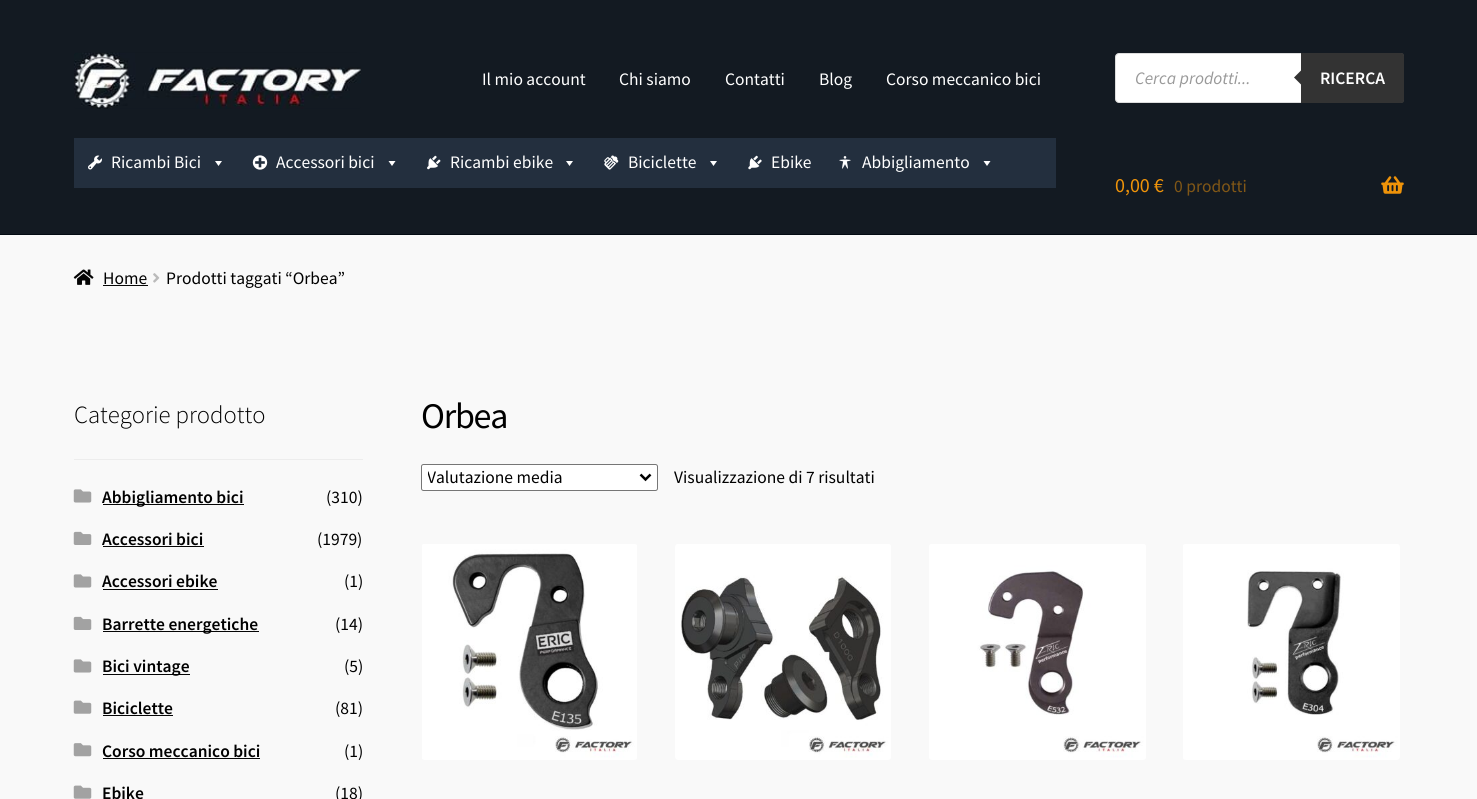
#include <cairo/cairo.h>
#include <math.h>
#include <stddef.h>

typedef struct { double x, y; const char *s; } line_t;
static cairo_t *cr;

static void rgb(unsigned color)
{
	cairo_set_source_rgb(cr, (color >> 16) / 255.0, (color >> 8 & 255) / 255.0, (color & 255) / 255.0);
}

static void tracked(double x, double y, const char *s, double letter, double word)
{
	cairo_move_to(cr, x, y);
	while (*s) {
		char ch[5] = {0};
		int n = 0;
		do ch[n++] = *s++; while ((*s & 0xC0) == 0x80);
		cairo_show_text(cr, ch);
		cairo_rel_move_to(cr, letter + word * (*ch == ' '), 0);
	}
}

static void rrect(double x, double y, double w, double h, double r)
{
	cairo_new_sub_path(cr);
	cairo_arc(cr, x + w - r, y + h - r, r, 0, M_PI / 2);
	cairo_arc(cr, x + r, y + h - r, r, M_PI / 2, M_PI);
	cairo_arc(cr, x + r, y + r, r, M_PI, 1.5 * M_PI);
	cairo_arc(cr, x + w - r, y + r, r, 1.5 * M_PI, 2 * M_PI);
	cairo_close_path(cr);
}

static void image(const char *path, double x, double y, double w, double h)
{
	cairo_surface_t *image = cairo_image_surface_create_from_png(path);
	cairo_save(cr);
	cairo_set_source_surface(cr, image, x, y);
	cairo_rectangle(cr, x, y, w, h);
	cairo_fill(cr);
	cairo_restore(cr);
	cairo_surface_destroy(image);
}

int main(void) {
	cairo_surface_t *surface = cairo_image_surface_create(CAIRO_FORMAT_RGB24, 1477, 799);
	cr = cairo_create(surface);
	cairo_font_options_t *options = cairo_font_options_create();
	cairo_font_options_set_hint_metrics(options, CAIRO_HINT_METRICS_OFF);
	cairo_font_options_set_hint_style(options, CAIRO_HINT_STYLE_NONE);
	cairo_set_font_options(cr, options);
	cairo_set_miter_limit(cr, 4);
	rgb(0xf9f9f9);
	cairo_paint(cr);
	rgb(0x131a22);
	cairo_rectangle(cr, 0, 0, 1477, 234);
	cairo_fill(cr);
	rgb(0x040b13);
	cairo_rectangle(cr, 0, 234, 1477, 1);
	cairo_fill(cr);
	image("img/1.png", 74, 52, 287, 57);
	rgb(0xffffff);
	rrect(1115.5, 53.5, 288, 49, 3.5);
	cairo_fill_preserve(cr);
	rgb(0xdddddd);
	cairo_set_line_width(cr, 1);
	cairo_stroke(cr);
	rgb(0x333333);
	cairo_new_path(cr);
	cairo_move_to(cr, 1301, 53);
	cairo_line_to(cr, 1401.5, 53);
	cairo_curve_to(cr, 1403, 53, 1404, 54, 1404, 55.5);
	cairo_line_to(cr, 1404, 100.5);
	cairo_curve_to(cr, 1404, 102, 1403, 103, 1401.5, 103);
	cairo_line_to(cr, 1301, 103);
	cairo_close_path(cr);
	cairo_fill(cr);
	cairo_new_path(cr);
	cairo_move_to(cr, 1304, 67.5);
	cairo_line_to(cr, 1304, 87.5);
	cairo_line_to(cr, 1294, 77.5);
	cairo_close_path(cr);
	cairo_fill(cr);
	rgb(0x232f3e);
	cairo_rectangle(cr, 74, 138, 982, 50);
	cairo_fill(cr);
	image("img/2.png", 88, 155, 14, 15);
	rgb(0xffffff);
	cairo_new_path(cr);
	cairo_move_to(cr, 222, 161);
	cairo_line_to(cr, 218.5, 166);
	cairo_line_to(cr, 215, 161);
	cairo_close_path(cr);
	cairo_fill(cr);
	image("img/3.png", 252, 155, 16, 15);
	cairo_new_path(cr);
	cairo_move_to(cr, 395.5, 161);
	cairo_line_to(cr, 392, 166);
	cairo_line_to(cr, 388.5, 161);
	cairo_close_path(cr);
	cairo_fill(cr);
	image("img/4.png", 427, 155, 14, 15);
	cairo_new_path(cr);
	cairo_move_to(cr, 573, 161);
	cairo_line_to(cr, 569.5, 166);
	cairo_line_to(cr, 566, 161);
	cairo_close_path(cr);
	cairo_fill(cr);
	image("img/5.png", 604, 155, 15, 15);
	cairo_new_path(cr);
	cairo_move_to(cr, 717, 161);
	cairo_line_to(cr, 713.5, 166);
	cairo_line_to(cr, 710, 161);
	cairo_close_path(cr);
	cairo_fill(cr);
	image("img/6.png", 748, 155, 14, 15);
	image("img/7.png", 839, 156, 12, 13);
	cairo_new_path(cr);
	cairo_move_to(cr, 990.5, 161);
	cairo_line_to(cr, 987, 166);
	cairo_line_to(cr, 983.5, 161);
	cairo_close_path(cr);
	cairo_fill(cr);
	image("img/8.png", 1381, 176, 23, 18);
	image("img/9.png", 73, 269, 21, 16);
	rgb(0x050505);
	cairo_rectangle(cr, 103, 285, 45, 1);
	cairo_fill(cr);
	image("img/10.png", 153, 273, 7, 10);
	rgb(0xededed);
	cairo_rectangle(cr, 74, 459, 289, 1);
	cairo_fill(cr);
	image("img/11.png", 73, 489, 19, 14);
	rgb(0x050505);
	cairo_rectangle(cr, 103, 504, 141, 1);
	cairo_fill(cr);
	image("img/12.png", 73, 531, 19, 14);
	cairo_rectangle(cr, 103, 546, 101, 1);
	cairo_fill(cr);
	image("img/11.png", 73, 574, 19, 14);
	cairo_rectangle(cr, 103, 589, 115, 1);
	cairo_fill(cr);
	image("img/12.png", 73, 616, 19, 14);
	cairo_rectangle(cr, 103, 631, 156, 1);
	cairo_fill(cr);
	image("img/11.png", 73, 659, 19, 14);
	cairo_rectangle(cr, 103, 674, 87, 1);
	cairo_fill(cr);
	image("img/13.png", 73, 700, 19, 14);
	cairo_rectangle(cr, 103, 715, 70, 1);
	cairo_fill(cr);
	image("img/14.png", 73, 743, 19, 14);
	cairo_rectangle(cr, 103, 758, 157, 1);
	cairo_fill(cr);
	image("img/13.png", 73, 785, 19, 14);
	rgb(0xffffff);
	rrect(421.5, 464.5, 236, 26, 2);
	cairo_fill_preserve(cr);
	rgb(0x767676);
	cairo_stroke(cr);
	cairo_new_path(cr);
	cairo_move_to(cr, 640.5, 474.5);
	cairo_line_to(cr, 645.5, 479.5);
	cairo_line_to(cr, 650.5, 474.5);
	rgb(0x000000);
	cairo_set_line_width(cr, 2.5);
	cairo_stroke(cr);
	image("img/15.png", 422, 544, 215, 216);
	image("img/16.png", 675, 544, 216, 216);
	image("img/17.png", 929, 544, 217, 216);
	image("img/18.png", 1183, 544, 217, 216);
	cairo_select_font_face(cr, "Source Sans Pro", CAIRO_FONT_SLANT_NORMAL, CAIRO_FONT_WEIGHT_NORMAL);
	cairo_set_font_size(cr, 17.5);
	rgb(0xffffff);
	{
		static const line_t items[] = {
			{482, 85, "Il mio account"},
			{619, 85, "Chi siamo"},
			{725, 85, "Contatti"},
			{819, 85, "Blog"},
			{886, 85, "Corso meccanico bici"},
		};
		for (size_t i = 0; i < sizeof items / sizeof *items; i++) {
			cairo_move_to(cr, items[i].x, items[i].y);
			cairo_show_text(cr, items[i].s);
		}
	}
	cairo_select_font_face(cr, "Source Sans Pro", CAIRO_FONT_SLANT_ITALIC, CAIRO_FONT_WEIGHT_NORMAL);
	rgb(0x999999);
	cairo_move_to(cr, 1135, 84);
	cairo_show_text(cr, "Cerca prodotti...");
	cairo_select_font_face(cr, "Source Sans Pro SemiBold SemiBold", CAIRO_FONT_SLANT_NORMAL, CAIRO_FONT_WEIGHT_NORMAL);
	rgb(0xffffff);
	cairo_move_to(cr, 1320, 84);
	cairo_show_text(cr, "RICERCA");
	cairo_select_font_face(cr, "Source Sans Pro", CAIRO_FONT_SLANT_NORMAL, CAIRO_FONT_WEIGHT_NORMAL);
	{
		static const line_t items[] = {
			{111, 168, "Ricambi Bici"},
			{276, 168, "Accessori bici"},
			{450, 168, "Ricambi ebike"},
			{628, 168, "Biciclette"},
			{771, 168, "Ebike"},
			{862, 168, "Abbigliamento"},
		};
		for (size_t i = 0; i < sizeof items / sizeof *items; i++) {
			cairo_move_to(cr, items[i].x, items[i].y);
			cairo_show_text(cr, items[i].s);
		}
	}
	cairo_set_font_size(cr, 20);
	rgb(0xef9309);
	cairo_move_to(cr, 1115, 192);
	cairo_show_text(cr, "0,00 €");
	cairo_set_font_size(cr, 17.5);
	rgb(0x815716);
	cairo_move_to(cr, 1174, 192);
	cairo_show_text(cr, "0 prodotti");
	rgb(0x000000);
	cairo_move_to(cr, 103, 284);
	cairo_show_text(cr, "Home");
	cairo_move_to(cr, 166, 284);
	cairo_show_text(cr, "Prodotti taggati “Orbea”");
	cairo_select_font_face(cr, "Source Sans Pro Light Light", CAIRO_FONT_SLANT_NORMAL, CAIRO_FONT_WEIGHT_NORMAL);
	cairo_set_font_size(cr, 24.75);
	cairo_move_to(cr, 74, 423);
	cairo_show_text(cr, "Categorie prodotto");
	cairo_select_font_face(cr, "Source Sans Pro SemiBold SemiBold", CAIRO_FONT_SLANT_NORMAL, CAIRO_FONT_WEIGHT_NORMAL);
	cairo_set_font_size(cr, 17.5);
	cairo_move_to(cr, 102, 503);
	cairo_show_text(cr, "Abbigliamento bici");
	cairo_select_font_face(cr, "Source Sans Pro", CAIRO_FONT_SLANT_NORMAL, CAIRO_FONT_WEIGHT_NORMAL);
	cairo_move_to(cr, 326, 503);
	cairo_show_text(cr, "(310)");
	cairo_select_font_face(cr, "Source Sans Pro SemiBold SemiBold", CAIRO_FONT_SLANT_NORMAL, CAIRO_FONT_WEIGHT_NORMAL);
	cairo_move_to(cr, 102, 545);
	cairo_show_text(cr, "Accessori bici");
	cairo_select_font_face(cr, "Source Sans Pro", CAIRO_FONT_SLANT_NORMAL, CAIRO_FONT_WEIGHT_NORMAL);
	cairo_move_to(cr, 317, 545);
	cairo_show_text(cr, "(1979)");
	cairo_select_font_face(cr, "Source Sans Pro SemiBold SemiBold", CAIRO_FONT_SLANT_NORMAL, CAIRO_FONT_WEIGHT_NORMAL);
	cairo_move_to(cr, 102, 587);
	cairo_show_text(cr, "Accessori ebike");
	cairo_select_font_face(cr, "Source Sans Pro", CAIRO_FONT_SLANT_NORMAL, CAIRO_FONT_WEIGHT_NORMAL);
	cairo_move_to(cr, 344, 587);
	cairo_show_text(cr, "(1)");
	cairo_select_font_face(cr, "Source Sans Pro SemiBold SemiBold", CAIRO_FONT_SLANT_NORMAL, CAIRO_FONT_WEIGHT_NORMAL);
	cairo_move_to(cr, 102, 630);
	cairo_show_text(cr, "Barrette energetiche");
	cairo_select_font_face(cr, "Source Sans Pro", CAIRO_FONT_SLANT_NORMAL, CAIRO_FONT_WEIGHT_NORMAL);
	cairo_move_to(cr, 335, 630);
	cairo_show_text(cr, "(14)");
	cairo_select_font_face(cr, "Source Sans Pro SemiBold SemiBold", CAIRO_FONT_SLANT_NORMAL, CAIRO_FONT_WEIGHT_NORMAL);
	cairo_move_to(cr, 102, 672);
	cairo_show_text(cr, "Bici vintage");
	cairo_select_font_face(cr, "Source Sans Pro", CAIRO_FONT_SLANT_NORMAL, CAIRO_FONT_WEIGHT_NORMAL);
	cairo_move_to(cr, 344, 672);
	cairo_show_text(cr, "(5)");
	cairo_select_font_face(cr, "Source Sans Pro SemiBold SemiBold", CAIRO_FONT_SLANT_NORMAL, CAIRO_FONT_WEIGHT_NORMAL);
	cairo_move_to(cr, 102, 714);
	cairo_show_text(cr, "Biciclette");
	cairo_select_font_face(cr, "Source Sans Pro", CAIRO_FONT_SLANT_NORMAL, CAIRO_FONT_WEIGHT_NORMAL);
	cairo_move_to(cr, 335, 714);
	cairo_show_text(cr, "(81)");
	cairo_select_font_face(cr, "Source Sans Pro SemiBold SemiBold", CAIRO_FONT_SLANT_NORMAL, CAIRO_FONT_WEIGHT_NORMAL);
	cairo_move_to(cr, 102, 757);
	cairo_show_text(cr, "Corso meccanico bici");
	cairo_select_font_face(cr, "Source Sans Pro", CAIRO_FONT_SLANT_NORMAL, CAIRO_FONT_WEIGHT_NORMAL);
	cairo_move_to(cr, 344, 757);
	cairo_show_text(cr, "(1)");
	cairo_select_font_face(cr, "Source Sans Pro SemiBold SemiBold", CAIRO_FONT_SLANT_NORMAL, CAIRO_FONT_WEIGHT_NORMAL);
	cairo_move_to(cr, 102, 799);
	cairo_show_text(cr, "Ebike");
	cairo_select_font_face(cr, "Source Sans Pro", CAIRO_FONT_SLANT_NORMAL, CAIRO_FONT_WEIGHT_NORMAL);
	cairo_move_to(cr, 335, 799);
	cairo_show_text(cr, "(18)");
	cairo_set_font_size(cr, 36);
	tracked(421, 428, "Orbea", -1.25, 0);
	cairo_save(cr);
	cairo_rectangle(cr, 428, 465, 208, 25);
	cairo_clip(cr);
	cairo_set_font_size(cr, 17.5);
	cairo_move_to(cr, 427, 483);
	cairo_show_text(cr, "Valutazione media");
	cairo_restore(cr);
	cairo_set_font_size(cr, 17.5);
	cairo_move_to(cr, 674, 483);
	cairo_show_text(cr, "Visualizzazione di 7 risultati");
	cairo_surface_write_to_png(surface, "page.png");
	cairo_font_options_destroy(options);
	cairo_destroy(cr);
	cairo_surface_destroy(surface);
	return 0;
}
